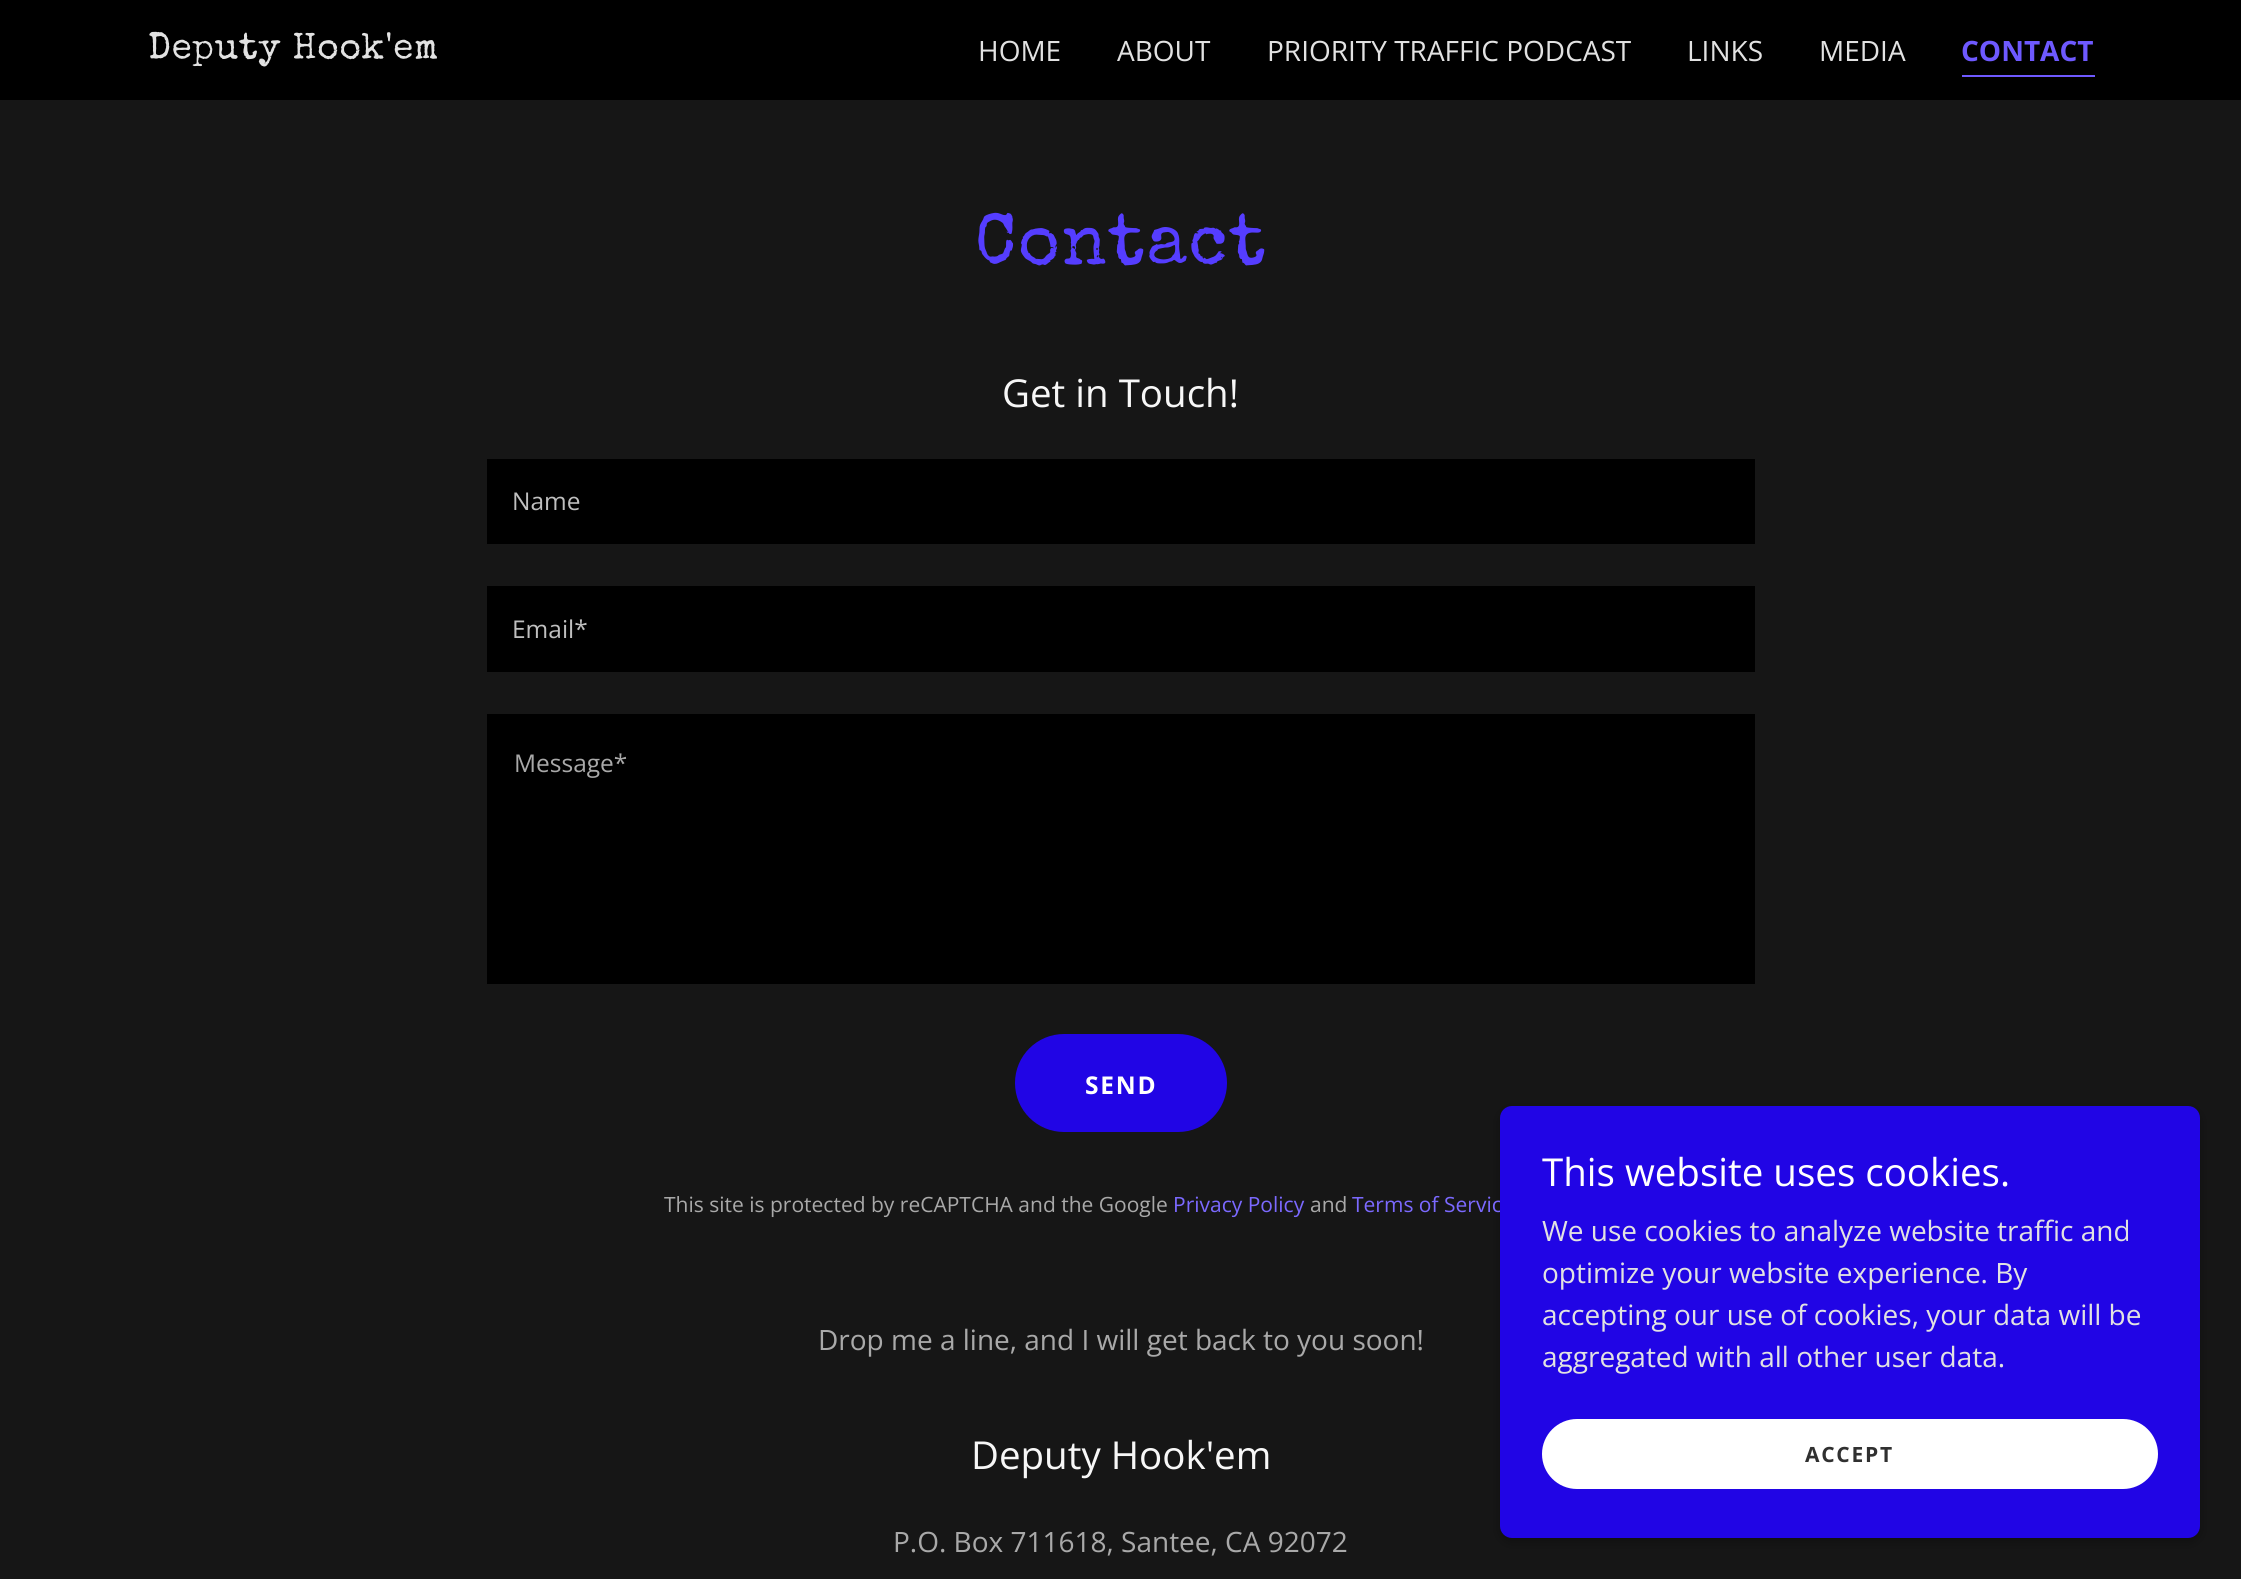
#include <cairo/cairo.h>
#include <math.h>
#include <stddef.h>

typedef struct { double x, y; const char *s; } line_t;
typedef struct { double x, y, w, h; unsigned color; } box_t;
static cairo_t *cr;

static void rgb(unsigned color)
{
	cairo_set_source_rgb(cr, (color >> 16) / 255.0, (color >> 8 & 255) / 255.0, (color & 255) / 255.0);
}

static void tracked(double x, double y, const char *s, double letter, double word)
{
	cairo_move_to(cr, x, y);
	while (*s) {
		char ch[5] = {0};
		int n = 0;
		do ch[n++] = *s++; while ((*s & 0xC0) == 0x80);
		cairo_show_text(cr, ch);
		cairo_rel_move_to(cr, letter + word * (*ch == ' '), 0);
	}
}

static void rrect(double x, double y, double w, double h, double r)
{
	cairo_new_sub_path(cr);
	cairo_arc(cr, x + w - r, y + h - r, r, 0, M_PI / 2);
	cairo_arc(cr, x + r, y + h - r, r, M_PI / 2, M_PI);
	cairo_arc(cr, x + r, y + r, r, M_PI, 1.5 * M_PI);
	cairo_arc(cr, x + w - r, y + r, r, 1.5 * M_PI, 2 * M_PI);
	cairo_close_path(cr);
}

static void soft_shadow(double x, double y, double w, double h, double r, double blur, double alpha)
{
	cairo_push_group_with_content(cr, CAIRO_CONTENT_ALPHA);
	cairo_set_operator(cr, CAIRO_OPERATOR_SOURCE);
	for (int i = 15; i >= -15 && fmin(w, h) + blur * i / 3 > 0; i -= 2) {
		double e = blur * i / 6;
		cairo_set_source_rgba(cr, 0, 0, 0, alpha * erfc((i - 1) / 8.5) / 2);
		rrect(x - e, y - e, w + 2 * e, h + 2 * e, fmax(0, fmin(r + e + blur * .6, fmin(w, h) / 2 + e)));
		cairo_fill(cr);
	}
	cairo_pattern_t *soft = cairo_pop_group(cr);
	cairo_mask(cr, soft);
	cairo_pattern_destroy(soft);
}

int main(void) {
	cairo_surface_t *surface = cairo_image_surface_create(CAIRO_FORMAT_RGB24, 2241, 1579);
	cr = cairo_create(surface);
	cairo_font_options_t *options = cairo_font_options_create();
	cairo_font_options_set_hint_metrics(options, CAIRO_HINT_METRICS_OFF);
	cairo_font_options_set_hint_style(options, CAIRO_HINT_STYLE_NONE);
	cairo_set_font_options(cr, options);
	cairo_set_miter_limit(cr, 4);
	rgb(0x161616);
	cairo_paint(cr);
	{
		static const box_t items[] = {
			{0, 0, 2241, 100, 0x000000},
			{1962, 75, 133, 2, 0x6e59ff},
			{487, 459, 1268, 85, 0x000000},
			{487, 586, 1268, 86, 0x000000},
			{487, 714, 1268, 270, 0x000000},
		};
		for (size_t i = 0; i < sizeof items / sizeof *items; i++) {
			rgb(items[i].color);
			cairo_rectangle(cr, items[i].x, items[i].y, items[i].w, items[i].h);
			cairo_fill(cr);
		}
	}
	rgb(0x2105e5);
	rrect(1015, 1034, 212, 98, 49);
	cairo_fill(cr);
	rgb(0x000000);
	soft_shadow(1500, 1110, 700, 432, 12, 5, 0.3);
	cairo_select_font_face(cr, "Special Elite", CAIRO_FONT_SLANT_NORMAL, CAIRO_FONT_WEIGHT_NORMAL);
	cairo_set_font_size(cr, 36.75);
	rgb(0xe2e2e2);
	tracked(148, 58, "Deputy Hook'em", 0.75, 0);
	cairo_select_font_face(cr, "Open Sans", CAIRO_FONT_SLANT_NORMAL, CAIRO_FONT_WEIGHT_NORMAL);
	cairo_set_font_size(cr, 28);
	{
		static const line_t items[] = {
			{978, 61, "HOME"},
			{1117, 61, "ABOUT"},
			{1267, 61, "PRIORITY TRAFFIC PODCAST"},
			{1687, 61, "LINKS"},
			{1819, 61, "MEDIA"},
		};
		for (size_t i = 0; i < sizeof items / sizeof *items; i++) {
			cairo_move_to(cr, items[i].x, items[i].y);
			cairo_show_text(cr, items[i].s);
		}
	}
	cairo_select_font_face(cr, "Open Sans", CAIRO_FONT_SLANT_NORMAL, CAIRO_FONT_WEIGHT_BOLD);
	rgb(0x6e59ff);
	cairo_move_to(cr, 1961, 61);
	cairo_show_text(cr, "CONTACT");
	cairo_select_font_face(cr, "Special Elite", CAIRO_FONT_SLANT_NORMAL, CAIRO_FONT_WEIGHT_NORMAL);
	cairo_set_font_size(cr, 71.75);
	rgb(0x553dff);
	tracked(975, 263, "Contact", 1.5, 0);
	cairo_select_font_face(cr, "Open Sans", CAIRO_FONT_SLANT_NORMAL, CAIRO_FONT_WEIGHT_NORMAL);
	cairo_set_font_size(cr, 38.5);
	rgb(0xf7f7f7);
	cairo_move_to(cr, 1002, 407);
	cairo_show_text(cr, "Get in Touch!");
	cairo_set_font_size(cr, 24.5);
	rgb(0xbfbfbf);
	cairo_move_to(cr, 512, 510);
	cairo_show_text(cr, "Name");
	cairo_move_to(cr, 512, 638);
	cairo_show_text(cr, "Email*");
	rgb(0xa9a9a9);
	cairo_move_to(cr, 514, 772);
	cairo_show_text(cr, "Message*");
	cairo_select_font_face(cr, "Open Sans", CAIRO_FONT_SLANT_NORMAL, CAIRO_FONT_WEIGHT_BOLD);
	rgb(0xffffff);
	tracked(1085, 1094, "SEND", 1.75, 0);
	cairo_select_font_face(cr, "Open Sans", CAIRO_FONT_SLANT_NORMAL, CAIRO_FONT_WEIGHT_NORMAL);
	cairo_set_font_size(cr, 21);
	rgb(0xa9a9a9);
	cairo_move_to(cr, 664, 1212);
	cairo_show_text(cr, "This site is protected by reCAPTCHA and the Google");
	rgb(0x7b69ff);
	cairo_move_to(cr, 1173, 1212);
	cairo_show_text(cr, "Privacy Policy");
	rgb(0xa9a9a9);
	cairo_move_to(cr, 1310, 1212);
	cairo_show_text(cr, "and");
	rgb(0x7b69ff);
	cairo_move_to(cr, 1352, 1212);
	cairo_show_text(cr, "Terms of Servic");
	cairo_set_font_size(cr, 28);
	rgb(0xa9a9a9);
	cairo_move_to(cr, 818, 1350);
	cairo_show_text(cr, "Drop me a line, and I will get back to you soon!");
	cairo_set_font_size(cr, 38.5);
	rgb(0xf7f7f7);
	cairo_move_to(cr, 971, 1469);
	cairo_show_text(cr, "Deputy Hook'em");
	cairo_set_font_size(cr, 28);
	rgb(0xa9a9a9);
	cairo_move_to(cr, 893, 1552);
	cairo_show_text(cr, "P.O. Box 711618, Santee, CA 92072");
	rgb(0x2105e5);
	rrect(1500, 1106, 700, 432, 12);
	cairo_fill(cr);
	cairo_set_font_size(cr, 38.5);
	rgb(0xffffff);
	cairo_move_to(cr, 1542, 1186);
	cairo_show_text(cr, "This website uses cookies.");
	cairo_set_font_size(cr, 28);
	rgb(0xe2e2e2);
	{
		static const line_t items[] = {
			{1542, 1241, "We use cookies to analyze website traffic and"},
			{1542, 1283, "optimize your website experience. By"},
			{1542, 1325, "accepting our use of cookies, your data will be"},
			{1542, 1367, "aggregated with all other user data."},
		};
		for (size_t i = 0; i < sizeof items / sizeof *items; i++) {
			cairo_move_to(cr, items[i].x, items[i].y);
			cairo_show_text(cr, items[i].s);
		}
	}
	rgb(0xffffff);
	rrect(1542, 1419, 616, 70, 35);
	cairo_fill(cr);
	cairo_select_font_face(cr, "Open Sans", CAIRO_FONT_SLANT_NORMAL, CAIRO_FONT_WEIGHT_BOLD);
	cairo_set_font_size(cr, 21);
	rgb(0x303030);
	tracked(1805, 1462, "ACCEPT", 1.75, 0);
	cairo_surface_write_to_png(surface, "page.png");
	cairo_font_options_destroy(options);
	cairo_destroy(cr);
	cairo_surface_destroy(surface);
	return 0;
}
